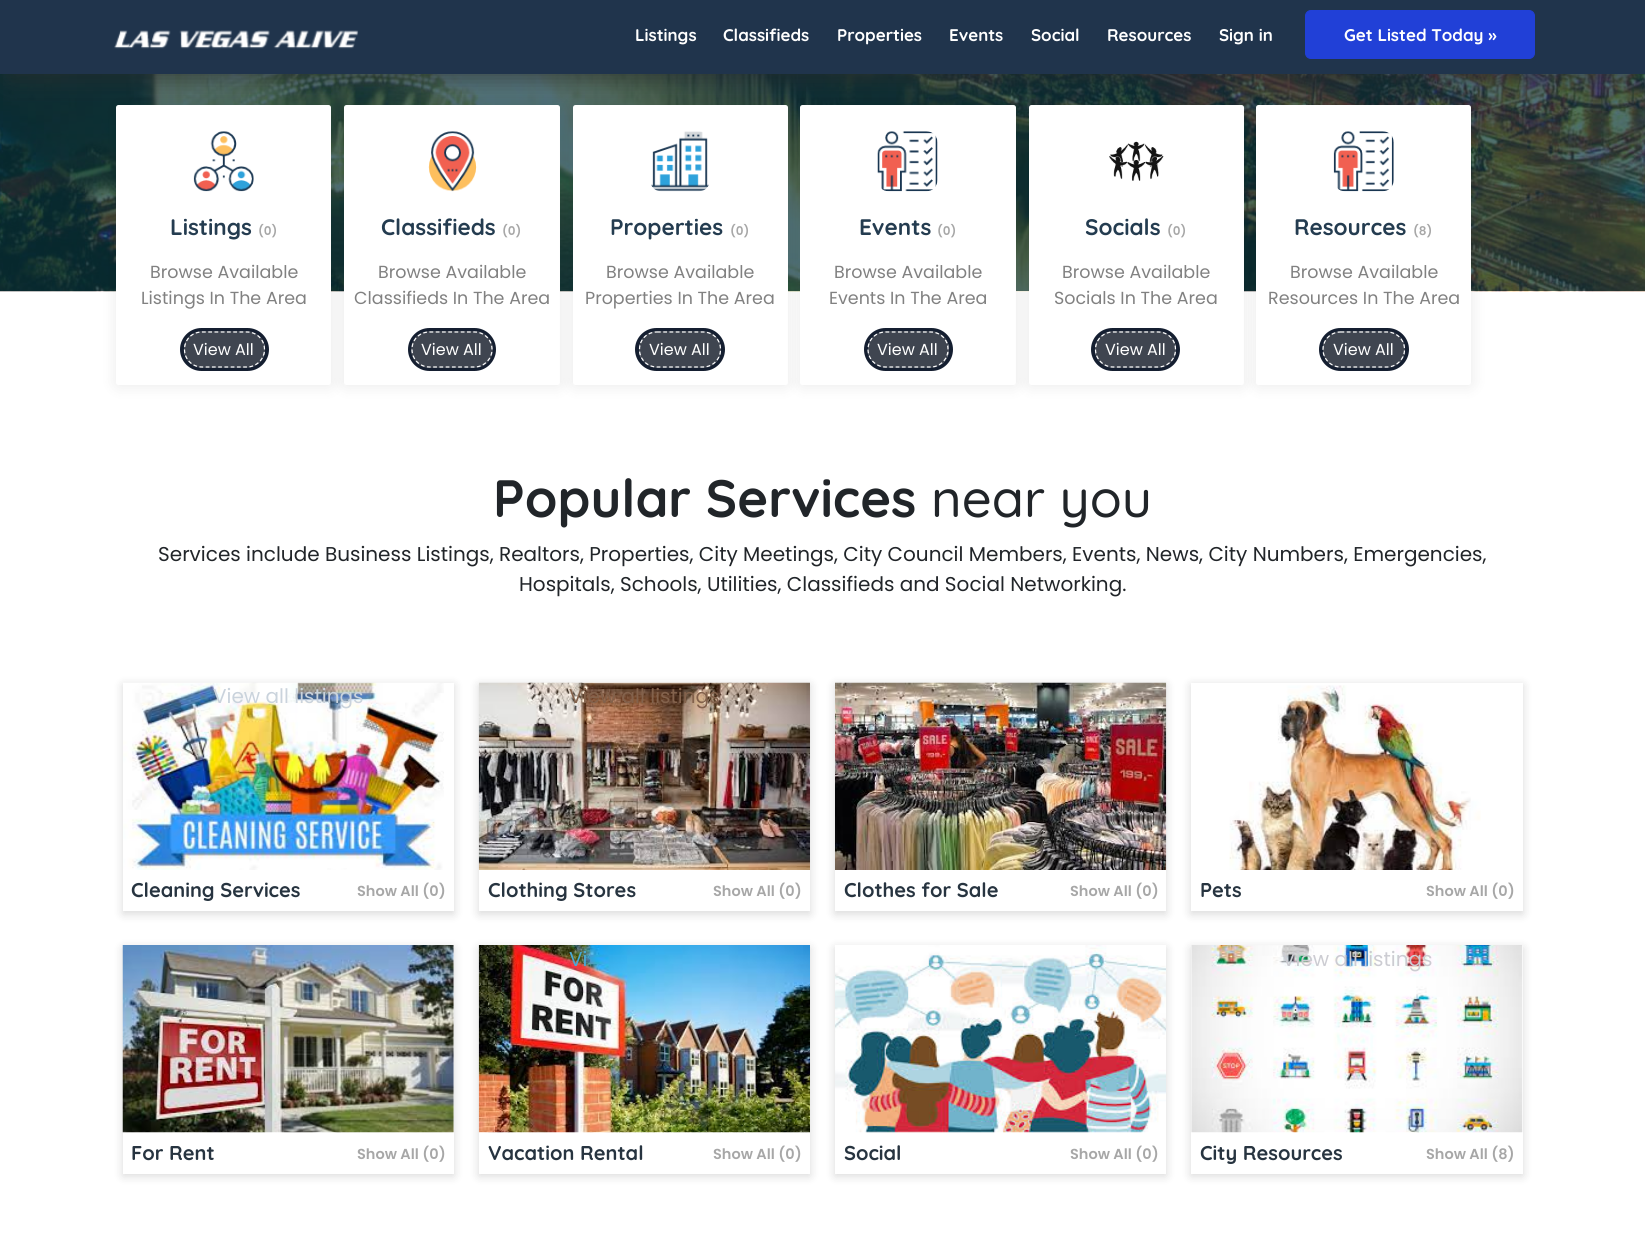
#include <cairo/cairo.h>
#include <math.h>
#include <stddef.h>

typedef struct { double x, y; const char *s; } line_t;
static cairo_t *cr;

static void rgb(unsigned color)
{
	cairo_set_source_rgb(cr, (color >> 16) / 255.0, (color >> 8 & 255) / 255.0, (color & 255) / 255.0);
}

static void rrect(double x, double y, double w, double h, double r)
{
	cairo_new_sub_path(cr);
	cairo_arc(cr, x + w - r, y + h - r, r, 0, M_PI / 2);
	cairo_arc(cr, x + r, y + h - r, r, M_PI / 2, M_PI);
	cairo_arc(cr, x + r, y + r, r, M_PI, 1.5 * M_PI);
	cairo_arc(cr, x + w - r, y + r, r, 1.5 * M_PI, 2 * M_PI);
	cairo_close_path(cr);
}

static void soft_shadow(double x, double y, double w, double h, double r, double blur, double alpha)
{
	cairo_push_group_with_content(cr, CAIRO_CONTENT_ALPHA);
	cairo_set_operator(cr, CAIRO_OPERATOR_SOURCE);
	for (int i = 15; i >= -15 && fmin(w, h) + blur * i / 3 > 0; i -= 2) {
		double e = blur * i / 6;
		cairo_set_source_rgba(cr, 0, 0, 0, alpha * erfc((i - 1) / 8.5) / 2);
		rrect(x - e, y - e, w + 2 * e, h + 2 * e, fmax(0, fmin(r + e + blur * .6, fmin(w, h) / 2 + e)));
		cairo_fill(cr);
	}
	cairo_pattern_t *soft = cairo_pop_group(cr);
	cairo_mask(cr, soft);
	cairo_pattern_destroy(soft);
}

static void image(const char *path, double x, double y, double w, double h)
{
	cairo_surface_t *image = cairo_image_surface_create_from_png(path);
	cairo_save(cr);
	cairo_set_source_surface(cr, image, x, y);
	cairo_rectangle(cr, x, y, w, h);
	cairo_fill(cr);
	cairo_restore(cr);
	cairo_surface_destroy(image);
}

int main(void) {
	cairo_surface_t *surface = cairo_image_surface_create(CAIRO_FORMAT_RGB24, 1645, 1241);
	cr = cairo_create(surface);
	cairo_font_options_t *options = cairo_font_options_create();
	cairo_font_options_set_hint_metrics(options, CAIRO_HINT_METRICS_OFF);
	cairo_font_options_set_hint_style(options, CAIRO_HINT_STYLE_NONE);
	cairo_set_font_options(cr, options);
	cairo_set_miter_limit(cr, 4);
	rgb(0xffffff);
	cairo_paint(cr);
	image("img/2.png", 0, 74, 1645, 218);
	rgb(0x000000);
	soft_shadow(114, 103, 220, 285, 5, 7.5, 0.07);
	rgb(0xffffff);
	rrect(116, 105, 215, 280, 2.5);
	cairo_fill(cr);
	rgb(0x000000);
	soft_shadow(341, 103, 222, 285, 5, 7.5, 0.07);
	rgb(0xffffff);
	rrect(344, 105, 216, 280, 2.5);
	cairo_fill(cr);
	rgb(0x000000);
	soft_shadow(570, 103, 220, 285, 5, 7.5, 0.07);
	rgb(0xffffff);
	rrect(573, 105, 215, 280, 2.5);
	cairo_fill(cr);
	rgb(0x000000);
	soft_shadow(798, 103, 221, 285, 5, 7.5, 0.07);
	rgb(0xffffff);
	rrect(800, 105, 216, 280, 2.5);
	cairo_fill(cr);
	rgb(0x000000);
	soft_shadow(1026, 103, 220, 285, 5, 7.5, 0.07);
	rgb(0xffffff);
	rrect(1029, 105, 215, 280, 2.5);
	cairo_fill(cr);
	rgb(0x000000);
	soft_shadow(1254, 103, 220, 285, 5, 7.5, 0.07);
	rgb(0xffffff);
	rrect(1256, 105, 215, 280, 2.5);
	cairo_fill(cr);
	rgb(0x2a2a2a);
	soft_shadow(10, 24, 1625, 54, 0, 11, 0.63);
	rgb(0x20344c);
	cairo_rectangle(cr, 0, 0, 1645, 74);
	cairo_fill(cr);
	image("img/1.png", 114, 30, 245, 19);
	rgb(0x2140d7);
	rrect(1305.5, 10.5, 229, 48, 5.5);
	cairo_fill_preserve(cr);
	cairo_set_line_width(cr, 1);
	cairo_stroke(cr);
	image("img/3.png", 193, 131, 61, 61);
	rrect(182, 330, 85, 39, 19.5);
	rgb(0x151f31);
	cairo_set_line_width(cr, 4);
	cairo_stroke(cr);
	rgb(0x3f4550);
	rrect(184, 331, 81, 37, 18.5);
	cairo_fill(cr);
	cairo_new_path(cr);
	cairo_move_to(cr, 202, 332);
	cairo_line_to(cr, 247, 332);
	cairo_curve_to(cr, 256.5, 332, 264.5, 339.5, 264.5, 349.5);
	cairo_curve_to(cr, 264.5, 359, 256.5, 367, 247, 367);
	cairo_line_to(cr, 202, 367);
	cairo_curve_to(cr, 192, 367, 184.5, 359, 184.5, 349.5);
	cairo_curve_to(cr, 184.5, 339.5, 192, 332, 202, 332);
	cairo_close_path(cr);
	rgb(0xffffff);
	cairo_set_line_width(cr, 1.2);
	cairo_set_dash(cr, (double[]){3.75, 2.5}, 2, 0);
	cairo_stroke(cr);
	image("img/4.png", 428, 131, 49, 61);
	rrect(410, 330, 84, 39, 19.5);
	rgb(0x151f31);
	cairo_set_line_width(cr, 4);
	cairo_set_dash(cr, NULL, 0, 0);
	cairo_stroke(cr);
	rgb(0x3f4550);
	rrect(411, 331, 82, 37, 18.5);
	cairo_fill(cr);
	cairo_new_path(cr);
	cairo_move_to(cr, 429.5, 332);
	cairo_line_to(cr, 474.5, 332);
	cairo_curve_to(cr, 484, 332, 492, 339.5, 492, 349.5);
	cairo_curve_to(cr, 492, 359, 484, 367, 474.5, 367);
	cairo_line_to(cr, 429.5, 367);
	cairo_curve_to(cr, 419.5, 367, 412, 359, 412, 349.5);
	cairo_curve_to(cr, 412, 339.5, 419.5, 332, 429.5, 332);
	cairo_close_path(cr);
	rgb(0xffffff);
	cairo_set_line_width(cr, 1.2);
	cairo_set_dash(cr, (double[]){3.75, 2.5}, 2, 0);
	cairo_stroke(cr);
	image("img/5.png", 651, 131, 58, 61);
	rrect(637, 330, 86, 39, 19.5);
	rgb(0x151f31);
	cairo_set_line_width(cr, 4);
	cairo_set_dash(cr, NULL, 0, 0);
	cairo_stroke(cr);
	rgb(0x3f4550);
	rrect(639, 331, 82, 37, 18.5);
	cairo_fill(cr);
	cairo_new_path(cr);
	cairo_move_to(cr, 657, 332);
	cairo_line_to(cr, 703, 332);
	cairo_curve_to(cr, 713, 332, 720.5, 339.5, 720.5, 349.5);
	cairo_curve_to(cr, 720.5, 359, 713, 367, 703, 367);
	cairo_line_to(cr, 657, 367);
	cairo_curve_to(cr, 647, 367, 639.5, 359, 639.5, 349.5);
	cairo_curve_to(cr, 639.5, 339.5, 647, 332, 657, 332);
	cairo_close_path(cr);
	rgb(0xffffff);
	cairo_set_line_width(cr, 1.2);
	cairo_set_dash(cr, (double[]){3.75, 2.5}, 2, 0);
	cairo_stroke(cr);
	image("img/6.png", 877, 131, 61, 61);
	rrect(866, 330, 85, 39, 19.5);
	rgb(0x151f31);
	cairo_set_line_width(cr, 4);
	cairo_set_dash(cr, NULL, 0, 0);
	cairo_stroke(cr);
	rgb(0x3f4550);
	rrect(868, 331, 81, 37, 18.5);
	cairo_fill(cr);
	cairo_new_path(cr);
	cairo_move_to(cr, 885.5, 332);
	cairo_line_to(cr, 930.5, 332);
	cairo_curve_to(cr, 940.5, 332, 948, 339.5, 948, 349.5);
	cairo_curve_to(cr, 948, 359, 940.5, 367, 930.5, 367);
	cairo_line_to(cr, 885.5, 367);
	cairo_curve_to(cr, 876, 367, 868, 359, 868, 349.5);
	cairo_curve_to(cr, 868, 339.5, 876, 332, 885.5, 332);
	cairo_close_path(cr);
	rgb(0xffffff);
	cairo_set_line_width(cr, 1.2);
	cairo_set_dash(cr, (double[]){3.75, 2.5}, 2, 0);
	cairo_stroke(cr);
	image("img/7.png", 1109, 141, 55, 40);
	rrect(1093, 330, 85, 39, 19.5);
	rgb(0x151f31);
	cairo_set_line_width(cr, 4);
	cairo_set_dash(cr, NULL, 0, 0);
	cairo_stroke(cr);
	rgb(0x3f4550);
	rrect(1095, 331, 81, 37, 18.5);
	cairo_fill(cr);
	cairo_new_path(cr);
	cairo_move_to(cr, 1113, 332);
	cairo_line_to(cr, 1158, 332);
	cairo_curve_to(cr, 1168, 332, 1175.5, 339.5, 1175.5, 349.5);
	cairo_curve_to(cr, 1175.5, 359, 1168, 367, 1158, 367);
	cairo_line_to(cr, 1113, 367);
	cairo_curve_to(cr, 1103.5, 367, 1095.5, 359, 1095.5, 349.5);
	cairo_curve_to(cr, 1095.5, 339.5, 1103.5, 332, 1113, 332);
	cairo_close_path(cr);
	rgb(0xffffff);
	cairo_set_line_width(cr, 1.2);
	cairo_set_dash(cr, (double[]){3.75, 2.5}, 2, 0);
	cairo_stroke(cr);
	image("img/8.png", 1333, 131, 61, 61);
	rrect(1321, 330, 86, 39, 19.5);
	rgb(0x151f31);
	cairo_set_line_width(cr, 4);
	cairo_set_dash(cr, NULL, 0, 0);
	cairo_stroke(cr);
	rgb(0x3f4550);
	rrect(1323, 331, 82, 37, 18.5);
	cairo_fill(cr);
	cairo_new_path(cr);
	cairo_move_to(cr, 1340.5, 332);
	cairo_line_to(cr, 1387, 332);
	cairo_curve_to(cr, 1396.5, 332, 1404.5, 339.5, 1404.5, 349.5);
	cairo_curve_to(cr, 1404.5, 359, 1396.5, 367, 1387, 367);
	cairo_line_to(cr, 1340.5, 367);
	cairo_curve_to(cr, 1331, 367, 1323, 359, 1323, 349.5);
	cairo_curve_to(cr, 1323, 339.5, 1331, 332, 1340.5, 332);
	cairo_close_path(cr);
	rgb(0xffffff);
	cairo_set_line_width(cr, 1.2);
	cairo_set_dash(cr, (double[]){3.75, 2.5}, 2, 0);
	cairo_stroke(cr);
	rgb(0x000000);
	soft_shadow(123, 685, 331, 229, 0, 5, 0.15);
	rgb(0xffffff);
	cairo_rectangle(cr, 123, 683, 331, 228);
	cairo_fill(cr);
	image("img/9.png", 123, 682, 321, 188);
	cairo_save(cr);
	cairo_set_fill_rule(cr, CAIRO_FILL_RULE_EVEN_ODD);
	cairo_new_path(cr);
	cairo_move_to(cr, 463, 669);
	cairo_line_to(cr, 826, 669);
	cairo_line_to(cr, 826, 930);
	cairo_line_to(cr, 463, 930);
	cairo_close_path(cr);
	cairo_move_to(cr, 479, 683);
	cairo_line_to(cr, 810, 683);
	cairo_line_to(cr, 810, 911);
	cairo_line_to(cr, 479, 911);
	cairo_close_path(cr);
	cairo_clip(cr);
	rgb(0x000000);
	soft_shadow(479, 685, 331, 229, 0, 5, 0.15);
	cairo_restore(cr);
	image("img/10.png", 478, 682, 332, 188);
	cairo_save(cr);
	cairo_set_fill_rule(cr, CAIRO_FILL_RULE_EVEN_ODD);
	cairo_new_path(cr);
	cairo_move_to(cr, 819, 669);
	cairo_line_to(cr, 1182, 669);
	cairo_line_to(cr, 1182, 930);
	cairo_line_to(cr, 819, 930);
	cairo_close_path(cr);
	cairo_move_to(cr, 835, 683);
	cairo_line_to(cr, 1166, 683);
	cairo_line_to(cr, 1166, 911);
	cairo_line_to(cr, 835, 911);
	cairo_close_path(cr);
	cairo_clip(cr);
	rgb(0x000000);
	soft_shadow(835, 685, 331, 229, 0, 5, 0.15);
	cairo_restore(cr);
	image("img/11.png", 835, 682, 332, 188);
	rgb(0x000000);
	soft_shadow(1191, 685, 332, 229, 0, 5, 0.15);
	rgb(0xffffff);
	cairo_rectangle(cr, 1191, 683, 332, 228);
	cairo_fill(cr);
	image("img/12.png", 1229, 685, 252, 185);
	rgb(0x000000);
	soft_shadow(123, 948, 331, 228, 0, 5, 0.15);
	rgb(0xffffff);
	cairo_rectangle(cr, 123, 945, 331, 229);
	cairo_fill(cr);
	image("img/13.png", 122, 945, 332, 188);
	rgb(0x000000);
	soft_shadow(479, 948, 331, 228, 0, 5, 0.15);
	rgb(0xffffff);
	cairo_rectangle(cr, 479, 1132, 331, 42);
	cairo_fill(cr);
	image("img/14.png", 478, 945, 332, 188);
	rgb(0x000000);
	soft_shadow(835, 948, 331, 228, 0, 5, 0.15);
	rgb(0xffffff);
	cairo_rectangle(cr, 835, 1132, 331, 42);
	cairo_fill(cr);
	image("img/15.png", 835, 945, 331, 188);
	rgb(0x000000);
	soft_shadow(1191, 948, 332, 228, 0, 5, 0.15);
	rgb(0xffffff);
	cairo_rectangle(cr, 1191, 945, 332, 229);
	cairo_fill(cr);
	image("img/16.png", 1191, 945, 332, 188);
	cairo_select_font_face(cr, "Quicksand", CAIRO_FONT_SLANT_NORMAL, CAIRO_FONT_WEIGHT_BOLD);
	cairo_set_font_size(cr, 16.9);
	{
		static const line_t items[] = {
			{635, 41, "Listings"},
			{723, 41, "Classifieds"},
			{837, 41, "Properties"},
			{949, 41, "Events"},
			{1031, 41, "Social"},
			{1107, 41, "Resources"},
			{1219, 41, "Sign in"},
			{1344, 41, "Get Listed Today »"},
		};
		for (size_t i = 0; i < sizeof items / sizeof *items; i++) {
			cairo_move_to(cr, items[i].x, items[i].y);
			cairo_show_text(cr, items[i].s);
		}
	}
	cairo_set_font_size(cr, 22.5);
	rgb(0x243c50);
	cairo_move_to(cr, 170, 235);
	cairo_show_text(cr, "Listings");
	cairo_select_font_face(cr, "Poppins SemiBold", CAIRO_FONT_SLANT_NORMAL, CAIRO_FONT_WEIGHT_NORMAL);
	cairo_set_font_size(cr, 12);
	rgb(0xa7a7a7);
	cairo_move_to(cr, 258, 235);
	cairo_show_text(cr, "(0)");
	cairo_select_font_face(cr, "Poppins", CAIRO_FONT_SLANT_NORMAL, CAIRO_FONT_WEIGHT_NORMAL);
	cairo_set_font_size(cr, 17.5);
	rgb(0x818181);
	cairo_move_to(cr, 150, 278);
	cairo_show_text(cr, "Browse Available");
	cairo_move_to(cr, 141, 304);
	cairo_show_text(cr, "Listings In The Area");
	cairo_set_font_size(cr, 16);
	rgb(0xffffff);
	cairo_move_to(cr, 193, 355);
	cairo_show_text(cr, "View All");
	cairo_select_font_face(cr, "Quicksand", CAIRO_FONT_SLANT_NORMAL, CAIRO_FONT_WEIGHT_BOLD);
	cairo_set_font_size(cr, 22.5);
	rgb(0x243c50);
	cairo_move_to(cr, 381, 235);
	cairo_show_text(cr, "Classifieds");
	cairo_select_font_face(cr, "Poppins SemiBold", CAIRO_FONT_SLANT_NORMAL, CAIRO_FONT_WEIGHT_NORMAL);
	cairo_set_font_size(cr, 12);
	rgb(0xa7a7a7);
	cairo_move_to(cr, 502, 235);
	cairo_show_text(cr, "(0)");
	cairo_select_font_face(cr, "Poppins", CAIRO_FONT_SLANT_NORMAL, CAIRO_FONT_WEIGHT_NORMAL);
	cairo_set_font_size(cr, 17.5);
	rgb(0x818181);
	cairo_move_to(cr, 378, 278);
	cairo_show_text(cr, "Browse Available");
	cairo_move_to(cr, 354, 304);
	cairo_show_text(cr, "Classifieds In The Area");
	cairo_set_font_size(cr, 16);
	rgb(0xffffff);
	cairo_move_to(cr, 421, 355);
	cairo_show_text(cr, "View All");
	cairo_select_font_face(cr, "Quicksand", CAIRO_FONT_SLANT_NORMAL, CAIRO_FONT_WEIGHT_BOLD);
	cairo_set_font_size(cr, 22.5);
	rgb(0x243c50);
	cairo_move_to(cr, 610, 235);
	cairo_show_text(cr, "Properties");
	cairo_select_font_face(cr, "Poppins SemiBold", CAIRO_FONT_SLANT_NORMAL, CAIRO_FONT_WEIGHT_NORMAL);
	cairo_set_font_size(cr, 12);
	rgb(0xa7a7a7);
	cairo_move_to(cr, 730, 235);
	cairo_show_text(cr, "(0)");
	cairo_select_font_face(cr, "Poppins", CAIRO_FONT_SLANT_NORMAL, CAIRO_FONT_WEIGHT_NORMAL);
	cairo_set_font_size(cr, 17.5);
	rgb(0x818181);
	cairo_move_to(cr, 606, 278);
	cairo_show_text(cr, "Browse Available");
	cairo_move_to(cr, 585, 304);
	cairo_show_text(cr, "Properties In The Area");
	cairo_set_font_size(cr, 16);
	rgb(0xffffff);
	cairo_move_to(cr, 649, 355);
	cairo_show_text(cr, "View All");
	cairo_select_font_face(cr, "Quicksand", CAIRO_FONT_SLANT_NORMAL, CAIRO_FONT_WEIGHT_BOLD);
	cairo_set_font_size(cr, 22.5);
	rgb(0x243c50);
	cairo_move_to(cr, 859, 235);
	cairo_show_text(cr, "Events");
	cairo_select_font_face(cr, "Poppins SemiBold", CAIRO_FONT_SLANT_NORMAL, CAIRO_FONT_WEIGHT_NORMAL);
	cairo_set_font_size(cr, 12);
	rgb(0xa7a7a7);
	cairo_move_to(cr, 937, 235);
	cairo_show_text(cr, "(0)");
	cairo_select_font_face(cr, "Poppins", CAIRO_FONT_SLANT_NORMAL, CAIRO_FONT_WEIGHT_NORMAL);
	cairo_set_font_size(cr, 17.5);
	rgb(0x818181);
	cairo_move_to(cr, 834, 278);
	cairo_show_text(cr, "Browse Available");
	cairo_move_to(cr, 829, 304);
	cairo_show_text(cr, "Events In The Area");
	cairo_set_font_size(cr, 16);
	rgb(0xffffff);
	cairo_move_to(cr, 877, 355);
	cairo_show_text(cr, "View All");
	cairo_select_font_face(cr, "Quicksand", CAIRO_FONT_SLANT_NORMAL, CAIRO_FONT_WEIGHT_BOLD);
	cairo_set_font_size(cr, 22.5);
	rgb(0x243c50);
	cairo_move_to(cr, 1085, 235);
	cairo_show_text(cr, "Socials");
	cairo_select_font_face(cr, "Poppins SemiBold", CAIRO_FONT_SLANT_NORMAL, CAIRO_FONT_WEIGHT_NORMAL);
	cairo_set_font_size(cr, 12);
	rgb(0xa7a7a7);
	cairo_move_to(cr, 1167, 235);
	cairo_show_text(cr, "(0)");
	cairo_select_font_face(cr, "Poppins", CAIRO_FONT_SLANT_NORMAL, CAIRO_FONT_WEIGHT_NORMAL);
	cairo_set_font_size(cr, 17.5);
	rgb(0x818181);
	cairo_move_to(cr, 1062, 278);
	cairo_show_text(cr, "Browse Available");
	cairo_move_to(cr, 1054, 304);
	cairo_show_text(cr, "Socials In The Area");
	cairo_set_font_size(cr, 16);
	rgb(0xffffff);
	cairo_move_to(cr, 1105, 355);
	cairo_show_text(cr, "View All");
	cairo_select_font_face(cr, "Quicksand", CAIRO_FONT_SLANT_NORMAL, CAIRO_FONT_WEIGHT_BOLD);
	cairo_set_font_size(cr, 22.5);
	rgb(0x243c50);
	cairo_move_to(cr, 1294, 235);
	cairo_show_text(cr, "Resources");
	cairo_select_font_face(cr, "Poppins SemiBold", CAIRO_FONT_SLANT_NORMAL, CAIRO_FONT_WEIGHT_NORMAL);
	cairo_set_font_size(cr, 12);
	rgb(0xa7a7a7);
	cairo_move_to(cr, 1413, 235);
	cairo_show_text(cr, "(8)");
	cairo_select_font_face(cr, "Poppins", CAIRO_FONT_SLANT_NORMAL, CAIRO_FONT_WEIGHT_NORMAL);
	cairo_set_font_size(cr, 17.5);
	rgb(0x818181);
	cairo_move_to(cr, 1290, 278);
	cairo_show_text(cr, "Browse Available");
	cairo_move_to(cr, 1268, 304);
	cairo_show_text(cr, "Resources In The Area");
	cairo_set_font_size(cr, 16);
	rgb(0xffffff);
	cairo_move_to(cr, 1333, 355);
	cairo_show_text(cr, "View All");
	cairo_select_font_face(cr, "Quicksand", CAIRO_FONT_SLANT_NORMAL, CAIRO_FONT_WEIGHT_BOLD);
	cairo_set_font_size(cr, 52.5);
	rgb(0x212529);
	cairo_move_to(cr, 493, 517);
	cairo_show_text(cr, "Popular Services");
	cairo_select_font_face(cr, "Quicksand Medium", CAIRO_FONT_SLANT_NORMAL, CAIRO_FONT_WEIGHT_NORMAL);
	cairo_move_to(cr, 931, 517);
	cairo_show_text(cr, "near you");
	cairo_select_font_face(cr, "Poppins", CAIRO_FONT_SLANT_NORMAL, CAIRO_FONT_WEIGHT_NORMAL);
	cairo_set_font_size(cr, 20);
	cairo_move_to(cr, 158, 561);
	cairo_show_text(cr, "Services include Business Listings, Realtors, Properties, City Meetings, City Council Members, Events, News, City Numbers, Emergencies,");
	cairo_move_to(cr, 519, 591);
	cairo_show_text(cr, "Hospitals, Schools, Utilities, Classifieds and Social Networking.");
	rgb(0xcad3dc);
	cairo_move_to(cr, 213, 703);
	cairo_show_text(cr, "View all listings");
	cairo_select_font_face(cr, "Quicksand", CAIRO_FONT_SLANT_NORMAL, CAIRO_FONT_WEIGHT_BOLD);
	rgb(0x273440);
	cairo_move_to(cr, 131, 897);
	cairo_show_text(cr, "Cleaning Services");
	cairo_select_font_face(cr, "Poppins SemiBold", CAIRO_FONT_SLANT_NORMAL, CAIRO_FONT_WEIGHT_NORMAL);
	cairo_set_font_size(cr, 14.5);
	rgb(0xa7a7a7);
	cairo_move_to(cr, 357, 896);
	cairo_show_text(cr, "Show All (0)");
	cairo_select_font_face(cr, "Poppins", CAIRO_FONT_SLANT_NORMAL, CAIRO_FONT_WEIGHT_NORMAL);
	cairo_set_font_size(cr, 20);
	rgb(0x83624c);
	cairo_move_to(cr, 569, 703);
	cairo_show_text(cr, "View all listings");
	cairo_select_font_face(cr, "Quicksand", CAIRO_FONT_SLANT_NORMAL, CAIRO_FONT_WEIGHT_BOLD);
	rgb(0x273440);
	cairo_move_to(cr, 488, 897);
	cairo_show_text(cr, "Clothing Stores");
	cairo_select_font_face(cr, "Poppins SemiBold", CAIRO_FONT_SLANT_NORMAL, CAIRO_FONT_WEIGHT_NORMAL);
	cairo_set_font_size(cr, 14.5);
	rgb(0xa7a7a7);
	cairo_move_to(cr, 713, 896);
	cairo_show_text(cr, "Show All (0)");
	cairo_select_font_face(cr, "Quicksand", CAIRO_FONT_SLANT_NORMAL, CAIRO_FONT_WEIGHT_BOLD);
	cairo_set_font_size(cr, 20);
	rgb(0x273440);
	cairo_move_to(cr, 844, 897);
	cairo_show_text(cr, "Clothes for Sale");
	cairo_select_font_face(cr, "Poppins SemiBold", CAIRO_FONT_SLANT_NORMAL, CAIRO_FONT_WEIGHT_NORMAL);
	cairo_set_font_size(cr, 14.5);
	rgb(0xa7a7a7);
	cairo_move_to(cr, 1070, 896);
	cairo_show_text(cr, "Show All (0)");
	cairo_select_font_face(cr, "Quicksand", CAIRO_FONT_SLANT_NORMAL, CAIRO_FONT_WEIGHT_BOLD);
	cairo_set_font_size(cr, 20);
	rgb(0x273440);
	cairo_move_to(cr, 1200, 897);
	cairo_show_text(cr, "Pets");
	cairo_select_font_face(cr, "Poppins SemiBold", CAIRO_FONT_SLANT_NORMAL, CAIRO_FONT_WEIGHT_NORMAL);
	cairo_set_font_size(cr, 14.5);
	rgb(0xa7a7a7);
	cairo_move_to(cr, 1426, 896);
	cairo_show_text(cr, "Show All (0)");
	cairo_select_font_face(cr, "Quicksand", CAIRO_FONT_SLANT_NORMAL, CAIRO_FONT_WEIGHT_BOLD);
	cairo_set_font_size(cr, 20);
	rgb(0x273440);
	cairo_move_to(cr, 131, 1160);
	cairo_show_text(cr, "For Rent");
	cairo_select_font_face(cr, "Poppins SemiBold", CAIRO_FONT_SLANT_NORMAL, CAIRO_FONT_WEIGHT_NORMAL);
	cairo_set_font_size(cr, 14.5);
	rgb(0xa7a7a7);
	cairo_move_to(cr, 357, 1159);
	cairo_show_text(cr, "Show All (0)");
	cairo_select_font_face(cr, "Poppins", CAIRO_FONT_SLANT_NORMAL, CAIRO_FONT_WEIGHT_NORMAL);
	cairo_set_font_size(cr, 20);
	rgb(0x48a9d7);
	cairo_move_to(cr, 569, 966);
	cairo_show_text(cr, "Vi");
	cairo_select_font_face(cr, "Quicksand", CAIRO_FONT_SLANT_NORMAL, CAIRO_FONT_WEIGHT_BOLD);
	rgb(0x273440);
	cairo_move_to(cr, 488, 1160);
	cairo_show_text(cr, "Vacation Rental");
	cairo_select_font_face(cr, "Poppins SemiBold", CAIRO_FONT_SLANT_NORMAL, CAIRO_FONT_WEIGHT_NORMAL);
	cairo_set_font_size(cr, 14.5);
	rgb(0xa7a7a7);
	cairo_move_to(cr, 713, 1159);
	cairo_show_text(cr, "Show All (0)");
	cairo_select_font_face(cr, "Quicksand", CAIRO_FONT_SLANT_NORMAL, CAIRO_FONT_WEIGHT_BOLD);
	cairo_set_font_size(cr, 20);
	rgb(0x273440);
	cairo_move_to(cr, 844, 1160);
	cairo_show_text(cr, "Social");
	cairo_select_font_face(cr, "Poppins SemiBold", CAIRO_FONT_SLANT_NORMAL, CAIRO_FONT_WEIGHT_NORMAL);
	cairo_set_font_size(cr, 14.5);
	rgb(0xa7a7a7);
	cairo_move_to(cr, 1070, 1159);
	cairo_show_text(cr, "Show All (0)");
	cairo_select_font_face(cr, "Poppins", CAIRO_FONT_SLANT_NORMAL, CAIRO_FONT_WEIGHT_NORMAL);
	cairo_set_font_size(cr, 20);
	rgb(0xccccd2);
	cairo_move_to(cr, 1282, 966);
	cairo_show_text(cr, "View all listings");
	cairo_select_font_face(cr, "Quicksand", CAIRO_FONT_SLANT_NORMAL, CAIRO_FONT_WEIGHT_BOLD);
	rgb(0x273440);
	cairo_move_to(cr, 1200, 1160);
	cairo_show_text(cr, "City Resources");
	cairo_select_font_face(cr, "Poppins SemiBold", CAIRO_FONT_SLANT_NORMAL, CAIRO_FONT_WEIGHT_NORMAL);
	cairo_set_font_size(cr, 14.5);
	rgb(0xa7a7a7);
	cairo_move_to(cr, 1426, 1159);
	cairo_show_text(cr, "Show All (8)");
	cairo_surface_write_to_png(surface, "page.png");
	cairo_font_options_destroy(options);
	cairo_destroy(cr);
	cairo_surface_destroy(surface);
	return 0;
}
